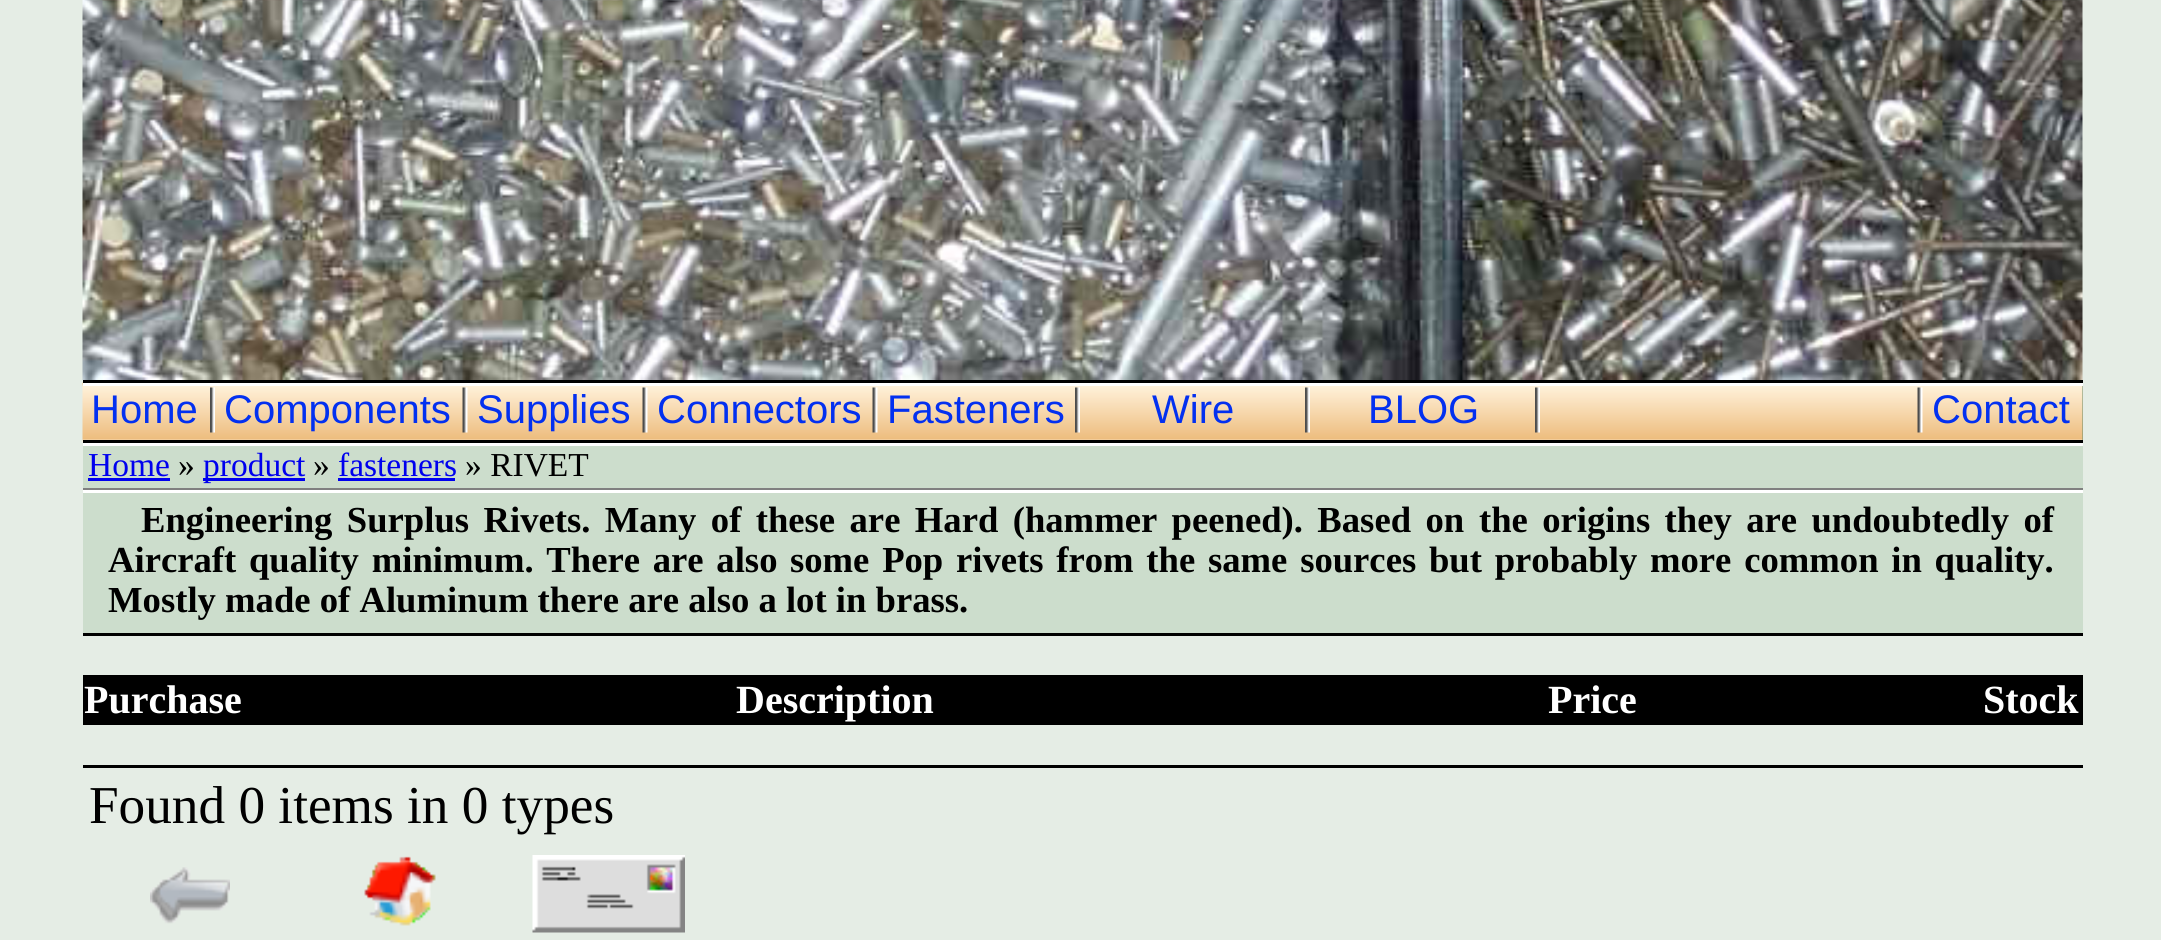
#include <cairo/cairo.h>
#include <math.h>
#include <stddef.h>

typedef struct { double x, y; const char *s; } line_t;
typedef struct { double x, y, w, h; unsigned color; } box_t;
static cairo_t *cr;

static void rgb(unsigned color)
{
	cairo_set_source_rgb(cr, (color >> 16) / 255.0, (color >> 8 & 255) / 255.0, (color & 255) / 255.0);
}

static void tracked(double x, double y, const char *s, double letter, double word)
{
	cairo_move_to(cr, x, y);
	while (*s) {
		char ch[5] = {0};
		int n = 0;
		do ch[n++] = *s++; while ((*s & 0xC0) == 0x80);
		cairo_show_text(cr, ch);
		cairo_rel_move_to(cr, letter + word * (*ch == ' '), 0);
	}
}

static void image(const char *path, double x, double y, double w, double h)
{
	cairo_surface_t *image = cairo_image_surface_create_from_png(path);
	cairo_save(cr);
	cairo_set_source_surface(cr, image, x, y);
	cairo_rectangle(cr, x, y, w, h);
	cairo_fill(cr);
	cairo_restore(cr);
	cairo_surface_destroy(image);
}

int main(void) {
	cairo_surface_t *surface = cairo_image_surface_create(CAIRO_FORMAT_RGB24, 2161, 940);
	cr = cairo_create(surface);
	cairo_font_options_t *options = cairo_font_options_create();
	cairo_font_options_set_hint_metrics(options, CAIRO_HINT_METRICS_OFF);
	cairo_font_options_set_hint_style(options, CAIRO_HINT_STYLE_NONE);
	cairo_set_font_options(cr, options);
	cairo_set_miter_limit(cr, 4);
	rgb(0xe5ede5);
	cairo_paint(cr);
	image("img/1.png", 82, 0, 2001, 380);
	rgb(0x668866);
	cairo_rectangle(cr, 2082, 386, 1, 54);
	cairo_fill(cr);
	image("img/2.png", 82, 382, 2001, 61);
	{
		static const box_t items[] = {
			{83, 380, 2000, 3, 0x000000},
			{83, 383, 2000, 3, 0xffffff},
			{83, 440, 2000, 3, 0x000000},
		};
		for (size_t i = 0; i < sizeof items / sizeof *items; i++) {
			rgb(items[i].color);
			cairo_rectangle(cr, items[i].x, items[i].y, items[i].w, items[i].h);
			cairo_fill(cr);
		}
	}
	image("img/3.png", 210, 387, 5, 46);
	image("img/4.png", 462, 387, 6, 46);
	image("img/4.png", 642, 387, 6, 46);
	image("img/4.png", 872, 387, 6, 46);
	image("img/3.png", 1075, 387, 5, 46);
	image("img/5.png", 1305, 387, 5, 46);
	image("img/5.png", 1535, 387, 5, 46);
	image("img/4.png", 1917, 387, 6, 46);
	{
		static const box_t items[] = {
			{83, 446, 2000, 42, 0xccddcc},
			{83, 443, 2000, 3, 0xffffff},
			{83, 488, 2000, 2, 0x808080},
			{88, 478, 82, 3, 0x0000ee},
			{203, 478, 102, 3, 0x0000ee},
			{338, 478, 117, 3, 0x0000ee},
			{83, 493, 2000, 140, 0xccddcc},
			{83, 490, 2000, 3, 0xffffff},
			{83, 633, 2000, 3, 0x000000},
			{83, 675, 2000, 50, 0x000000},
			{83, 765, 2000, 3, 0x000000},
		};
		for (size_t i = 0; i < sizeof items / sizeof *items; i++) {
			rgb(items[i].color);
			cairo_rectangle(cr, items[i].x, items[i].y, items[i].w, items[i].h);
			cairo_fill(cr);
		}
	}
	image("img/6.png", 150, 867, 80, 57);
	image("img/7.png", 364, 856, 72, 70);
	image("img/8.png", 532, 855, 153, 78);
	cairo_select_font_face(cr, "Liberation Sans", CAIRO_FONT_SLANT_NORMAL, CAIRO_FONT_WEIGHT_NORMAL);
	cairo_set_font_size(cr, 40);
	rgb(0x0330f0);
	{
		static const line_t items[] = {
			{91, 423, "Home"},
			{224, 423, "Components"},
			{477, 423, "Supplies"},
			{657, 423, "Connectors"},
			{887, 423, "Fasteners"},
			{1152, 423, "Wire"},
			{1368, 423, "BLOG"},
			{1932, 423, "Contact"},
		};
		for (size_t i = 0; i < sizeof items / sizeof *items; i++) {
			cairo_move_to(cr, items[i].x, items[i].y);
			cairo_show_text(cr, items[i].s);
		}
	}
	cairo_select_font_face(cr, "Liberation Serif", CAIRO_FONT_SLANT_NORMAL, CAIRO_FONT_WEIGHT_NORMAL);
	cairo_set_font_size(cr, 33.5);
	rgb(0x0000ee);
	cairo_move_to(cr, 88, 476);
	cairo_show_text(cr, "Home");
	rgb(0x000000);
	cairo_move_to(cr, 178, 476);
	cairo_show_text(cr, "»");
	rgb(0x0000ee);
	cairo_move_to(cr, 203, 476);
	cairo_show_text(cr, "product");
	rgb(0x000000);
	cairo_move_to(cr, 313, 476);
	cairo_show_text(cr, "»");
	rgb(0x0000ee);
	cairo_move_to(cr, 338, 476);
	cairo_show_text(cr, "fasteners");
	rgb(0x000000);
	cairo_move_to(cr, 465, 476);
	cairo_show_text(cr, "» RIVET");
	cairo_select_font_face(cr, "Liberation Serif", CAIRO_FONT_SLANT_NORMAL, CAIRO_FONT_WEIGHT_BOLD);
	cairo_set_font_size(cr, 36.65);
	tracked(141, 532, "Engineering Surplus Rivets. Many of these are Hard (hammer peened). Based on", 0, 5.25);
	tracked(1479, 532, "the origins they are undoubtedly of", 0, 5.25);
	tracked(108, 572, "Aircraft quality minimum. There are also", 0, 3.6);
	tracked(790, 572, "some Pop rivets from the same sources but probably more common in quality.", 0, 3.6);
	cairo_move_to(cr, 108, 612);
	cairo_show_text(cr, "Mostly made of Aluminum there are also a lot in brass.");
	cairo_set_font_size(cr, 40);
	rgb(0xffffff);
	{
		static const line_t items[] = {
			{84, 713, "Purchase"},
			{736, 713, "Description"},
			{1548, 713, "Price"},
			{1983, 713, "Stock"},
		};
		for (size_t i = 0; i < sizeof items / sizeof *items; i++) {
			cairo_move_to(cr, items[i].x, items[i].y);
			cairo_show_text(cr, items[i].s);
		}
	}
	cairo_select_font_face(cr, "Liberation Serif", CAIRO_FONT_SLANT_NORMAL, CAIRO_FONT_WEIGHT_NORMAL);
	cairo_set_font_size(cr, 53.25);
	rgb(0x000000);
	cairo_move_to(cr, 89, 823);
	cairo_show_text(cr, "Found 0 items in 0 types");
	cairo_surface_write_to_png(surface, "page.png");
	cairo_font_options_destroy(options);
	cairo_destroy(cr);
	cairo_surface_destroy(surface);
	return 0;
}
